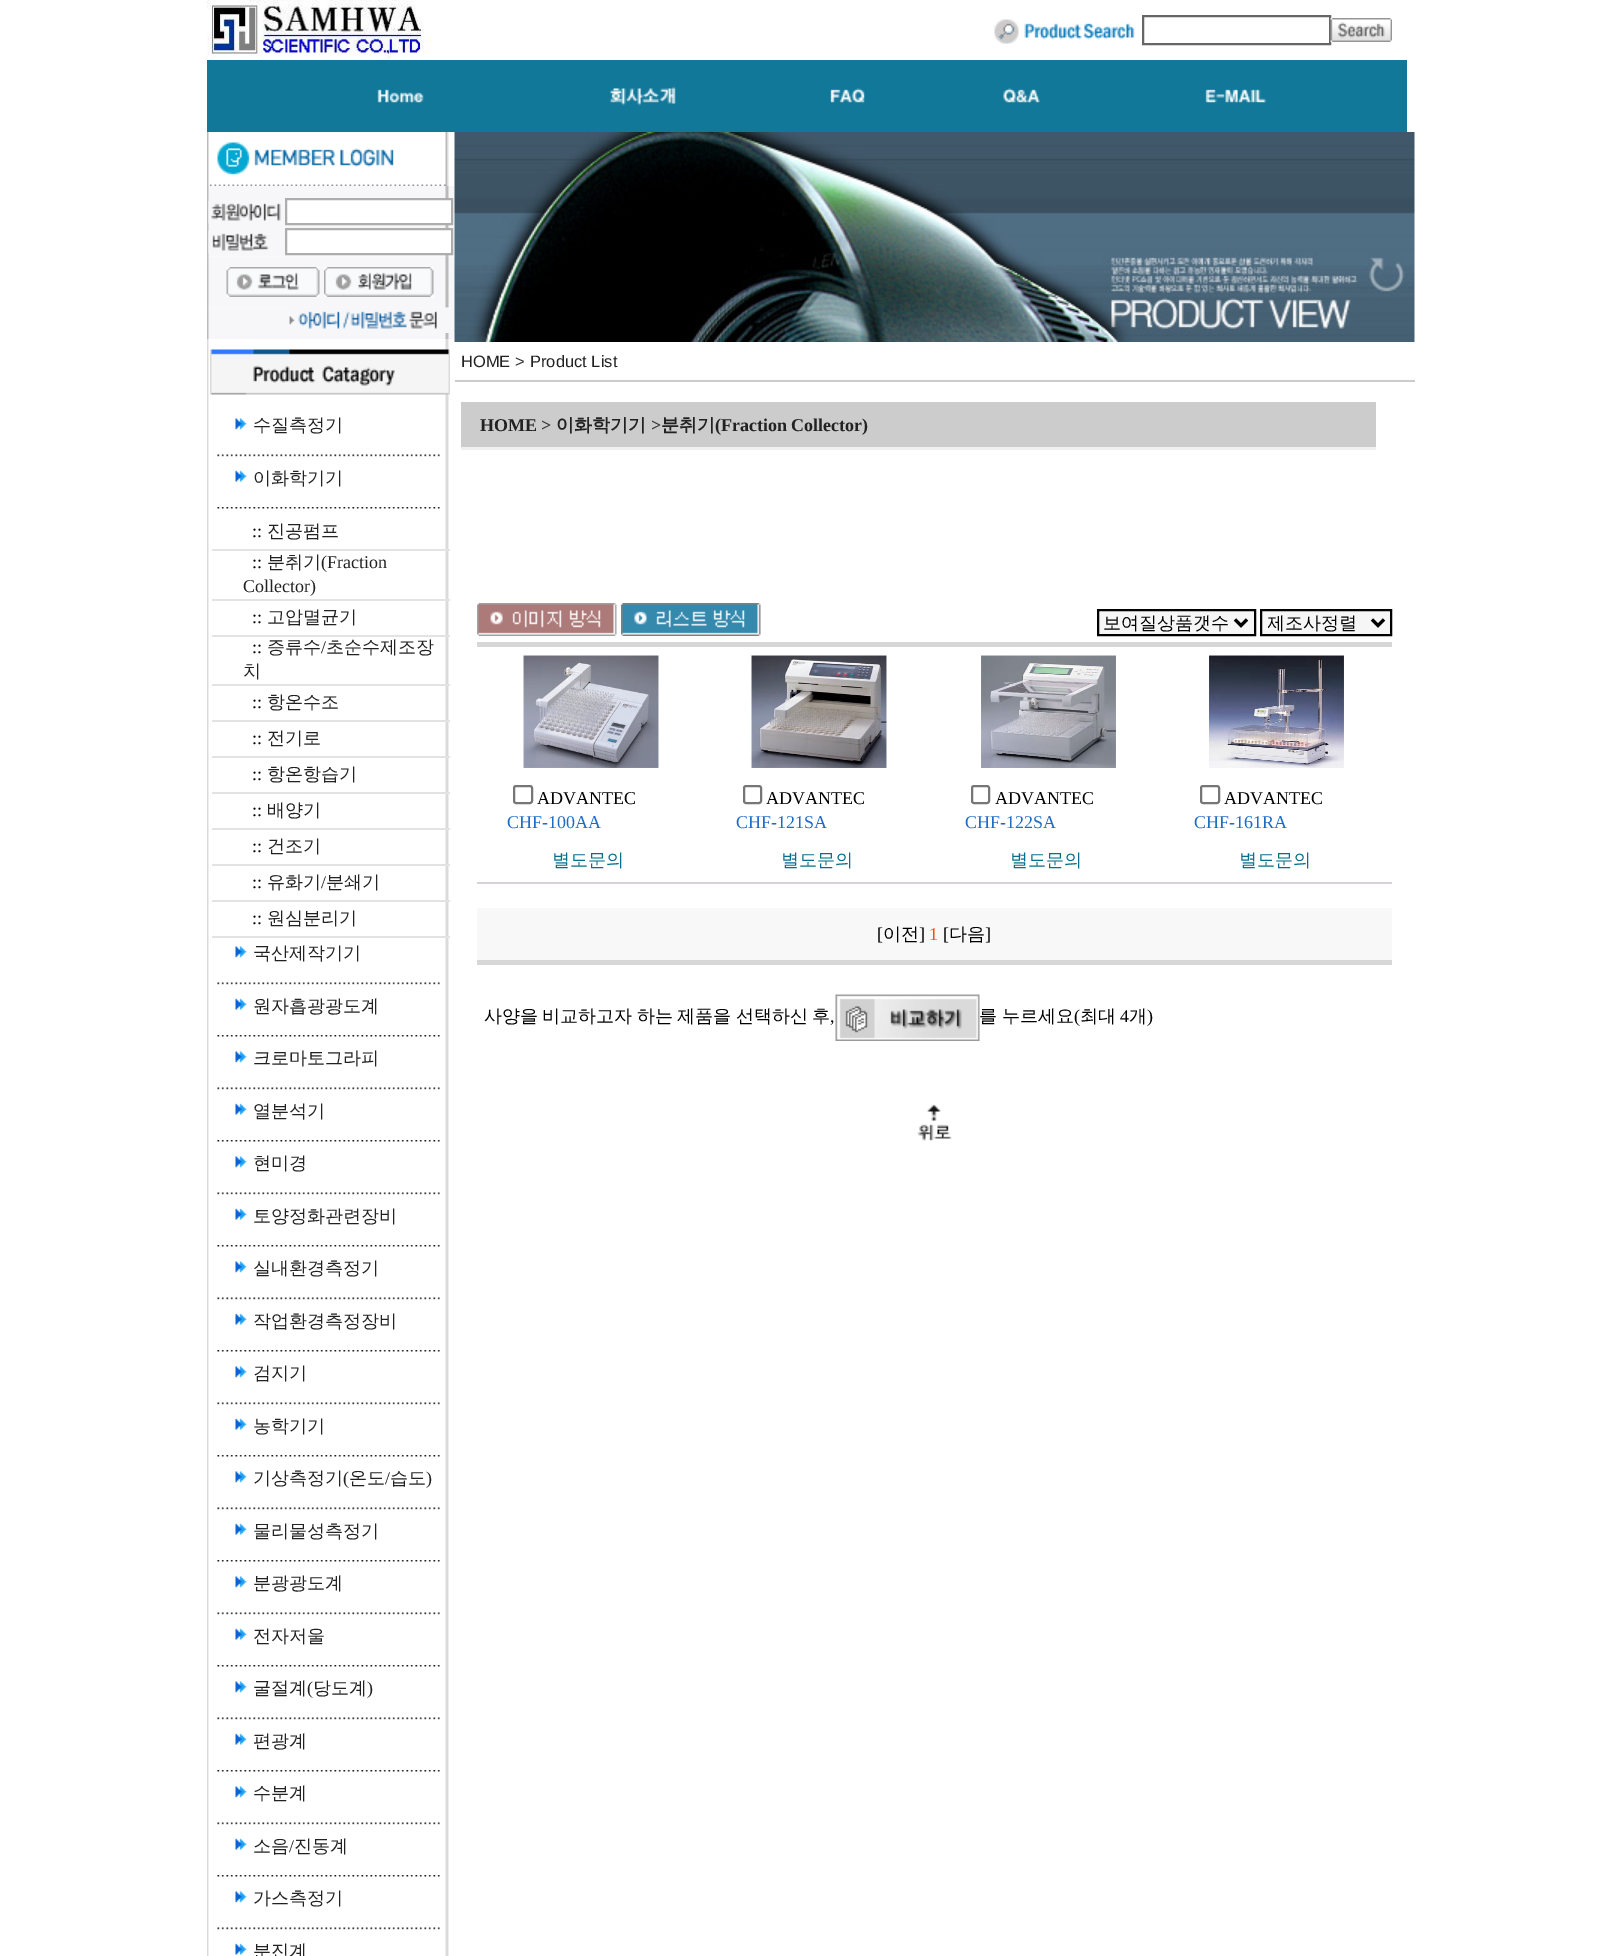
%!PS
<< /PageSize [1619 1956] >> setpagedevice
/rgb { 3 { 255 div 3 1 roll } repeat setrgbcolor } def
/font { [ exch dup neg 0 0 3 -1 roll 0 0 ] selectfont } def
/roundrect { 5 dict begin { /r /h /w /y /x } { exch def } forall
  x r add y moveto x w add y 2 copy h add r arct x w add y h add x 1 index r arct
  x y h add x y r arct x y 2 copy exch w add exch r arct closepath end } def
/picture { 5 dict begin { /h /w /y /x /name } { exch def } forall
  gsave x y translate w h scale
  w h 8 [w 0 0 h 0 0] name (r) file false 3 colorimage grestore end } def
0 1956 translate 1 -1 scale
4 setmiterlimit
255 255 255 rgb
0 0 1619 1956 rectfill
(img/1.rgb) 207 0 225 60 picture
(img/2.rgb) 994 19 141 25 picture
102 102 102 rgb
2 setlinewidth
1143 16 187 28 rectstroke
(img/3.rgb) 1330 18 62 24 picture
17 120 153 rgb
207 60 1200 72 rectfill
(img/4.rgb) 377 89 47 14 picture
(img/5.rgb) 610 86 66 20 picture
(img/6.rgb) 830 88 35 16 picture
(img/7.rgb) 1003 88 37 16 picture
(img/8.rgb) 1205 89 62 14 picture
(img/9.rgb) 207 132 242 1824 picture
(img/10.rgb) 207 132 240 54 picture
(img/11.rgb) 207 186 248 71 picture
(img/12.rgb) 208 201 73 23 picture
255 255 255 rgb
286 199 moveto 452 199 lineto 452 224 lineto 286 224 lineto closepath gsave fill grestore
173 173 173 rgb
stroke
(img/13.rgb) 208 231 61 23 picture
255 255 255 rgb
286 229 moveto 452 229 lineto 452 254 lineto 286 254 lineto closepath gsave fill grestore
173 173 173 rgb
stroke
(img/14.rgb) 207 256 248 11 picture
(img/15.rgb) 207 267 248 41 picture
(img/16.rgb) 226 267 94 30 picture
(img/17.rgb) 324 267 110 30 picture
(img/18.rgb) 207 307 248 32 picture
(img/19.rgb) 289 307 160 26 picture
(img/20.rgb) 210 349 240 46 picture
(img/21.rgb) 235 418 12 12 picture
(img/22.rgb) 217 454 223 3 picture
(img/23.rgb) 235 470 12 12 picture
(img/24.rgb) 217 507 223 2 picture
[
  [212 549 238 2 227 227 227]
  [212 599 238 2 227 227 227]
  [212 635 238 2 227 227 227]
  [212 684 238 2 227 227 227]
  [212 720 238 2 227 227 227]
  [212 756 238 2 227 227 227]
  [212 792 238 2 227 227 227]
  [212 828 238 2 227 227 227]
  [212 864 238 2 227 227 227]
  [212 900 238 2 227 227 227]
  [212 936 238 2 227 227 227]
] { aload pop rgb rectfill } forall
(img/21.rgb) 235 946 12 12 picture
(img/22.rgb) 217 982 223 3 picture
(img/23.rgb) 235 998 12 12 picture
(img/24.rgb) 217 1035 223 2 picture
(img/21.rgb) 235 1051 12 12 picture
(img/22.rgb) 217 1087 223 3 picture
(img/23.rgb) 235 1103 12 12 picture
(img/24.rgb) 217 1140 223 2 picture
(img/21.rgb) 235 1156 12 12 picture
(img/22.rgb) 217 1192 223 3 picture
(img/23.rgb) 235 1208 12 12 picture
(img/24.rgb) 217 1245 223 2 picture
(img/21.rgb) 235 1261 12 12 picture
(img/22.rgb) 217 1297 223 3 picture
(img/23.rgb) 235 1313 12 12 picture
(img/24.rgb) 217 1350 223 2 picture
(img/21.rgb) 235 1366 12 12 picture
(img/22.rgb) 217 1402 223 3 picture
(img/23.rgb) 235 1418 12 12 picture
(img/24.rgb) 217 1455 223 2 picture
(img/21.rgb) 235 1471 12 12 picture
(img/22.rgb) 217 1507 223 3 picture
(img/23.rgb) 235 1523 12 12 picture
(img/24.rgb) 217 1560 223 2 picture
(img/21.rgb) 235 1576 12 12 picture
(img/22.rgb) 217 1612 223 3 picture
(img/23.rgb) 235 1628 12 12 picture
(img/24.rgb) 217 1665 223 2 picture
(img/21.rgb) 235 1681 12 12 picture
(img/22.rgb) 217 1717 223 3 picture
(img/23.rgb) 235 1733 12 12 picture
(img/24.rgb) 217 1770 223 2 picture
(img/21.rgb) 235 1786 12 12 picture
(img/22.rgb) 217 1822 223 3 picture
(img/23.rgb) 235 1838 12 12 picture
(img/24.rgb) 217 1875 223 2 picture
(img/21.rgb) 235 1891 12 12 picture
(img/22.rgb) 217 1927 223 3 picture
(img/23.rgb) 235 1943 12 12 picture
(img/25.rgb) 454 132 961 210 picture
[
  [455 380 960 2 204 204 204]
  [461 402 915 45 204 204 204]
  [461 447 915 3 240 240 240]
] { aload pop rgb rectfill } forall
(img/26.rgb) 477 603 140 33 picture
(img/27.rgb) 621 603 140 33 picture
246 246 246 rgb
1098 610 moveto 1255 610 lineto 1255 635 lineto 1098 635 lineto closepath gsave fill grestore
0 0 0 rgb
stroke
3 setlinewidth
1235 619.5 moveto 1241 625.5 lineto 1247 619.5 lineto stroke
246 246 246 rgb
1261 610 moveto 1391 610 lineto 1391 635 lineto 1261 635 lineto closepath gsave fill grestore
0 0 0 rgb
2 setlinewidth
stroke
3 setlinewidth
1372 619.5 moveto 1378 625.5 lineto 1384 619.5 lineto stroke
215 215 215 rgb
477 642 915 5 rectfill
(img/28.rgb) 523 655 136 113 picture
118 118 118 rgb
2 setlinewidth
514 786 18 17 2 roundrect stroke
(img/29.rgb) 751 655 136 113 picture
744 786 17 17 2 roundrect stroke
(img/30.rgb) 981 655 135 113 picture
972 786 17 17 2 roundrect stroke
(img/31.rgb) 1209 655 135 113 picture
1201 786 18 17 2 roundrect stroke
[
  [477 882 915 2 216 209 216]
  [477 908 915 52 248 248 248]
  [477 960 915 5 215 215 215]
] { aload pop rgb rectfill } forall
(img/32.rgb) 835 994 145 47 picture
(img/33.rgb) 917 1104 35 37 picture
/WenQuanYiZenHei-Medium 18 font
34 34 34 rgb
253 431 moveto (수질측정기) show
253 484 moveto (이화학기기) show
/LiberationSerif-Regular 18 font
0 0 0 rgb
252 537 moveto (::) show
/WenQuanYiZenHei-Medium 18 font
34 34 34 rgb
267 537 moveto (진공펌프) show
/LiberationSerif-Regular 18 font
0 0 0 rgb
252 568 moveto (::) show
/WenQuanYiZenHei-Medium 18 font
34 34 34 rgb
267 568 moveto (분취기) show
/LiberationSerif-Regular 18 font
321 568 moveto (\(Fraction) show
243 592 moveto (Collector\)) show
0 0 0 rgb
252 623 moveto (::) show
/WenQuanYiZenHei-Medium 18 font
34 34 34 rgb
267 623 moveto (고압멸균기) show
/LiberationSerif-Regular 18 font
0 0 0 rgb
252 653 moveto (::) show
/WenQuanYiZenHei-Medium 18 font
34 34 34 rgb
267 653 moveto (증류수) show
/LiberationSerif-Regular 18 font
321 653 moveto (/) show
/WenQuanYiZenHei-Medium 18 font
326 653 moveto (초순수제조장) show
243 677 moveto (치) show
/LiberationSerif-Regular 18 font
0 0 0 rgb
252 708 moveto (::) show
/WenQuanYiZenHei-Medium 18 font
34 34 34 rgb
267 708 moveto (항온수조) show
/LiberationSerif-Regular 18 font
0 0 0 rgb
252 744 moveto (::) show
/WenQuanYiZenHei-Medium 18 font
34 34 34 rgb
267 744 moveto (전기로) show
/LiberationSerif-Regular 18 font
0 0 0 rgb
252 780 moveto (::) show
/WenQuanYiZenHei-Medium 18 font
34 34 34 rgb
267 780 moveto (항온항습기) show
/LiberationSerif-Regular 18 font
0 0 0 rgb
252 816 moveto (::) show
/WenQuanYiZenHei-Medium 18 font
34 34 34 rgb
267 816 moveto (배양기) show
/LiberationSerif-Regular 18 font
0 0 0 rgb
252 852 moveto (::) show
/WenQuanYiZenHei-Medium 18 font
34 34 34 rgb
267 852 moveto (건조기) show
/LiberationSerif-Regular 18 font
0 0 0 rgb
252 888 moveto (::) show
/WenQuanYiZenHei-Medium 18 font
34 34 34 rgb
267 888 moveto (유화기) show
/LiberationSerif-Regular 18 font
321 888 moveto (/) show
/WenQuanYiZenHei-Medium 18 font
326 888 moveto (분쇄기) show
/LiberationSerif-Regular 18 font
0 0 0 rgb
252 924 moveto (::) show
/WenQuanYiZenHei-Medium 18 font
34 34 34 rgb
[
  [(원심분리기) 267 924]
  [(국산제작기기) 253 959]
  [(원자흡광광도계) 253 1012]
  [(크로마토그라피) 253 1064]
  [(열분석기) 253 1117]
  [(현미경) 253 1169]
  [(토양정화관련장비) 253 1222]
  [(실내환경측정기) 253 1274]
  [(작업환경측정장비) 253 1327]
  [(검지기) 253 1379]
  [(농학기기) 253 1432]
  [(기상측정기) 253 1484]
] { aload pop moveto show } forall
/LiberationSerif-Regular 18 font
343 1484 moveto (\() show
/WenQuanYiZenHei-Medium 18 font
349 1484 moveto (온도) show
/LiberationSerif-Regular 18 font
385 1484 moveto (/) show
/WenQuanYiZenHei-Medium 18 font
390 1484 moveto (습도) show
/LiberationSerif-Regular 18 font
426 1484 moveto (\)) show
/WenQuanYiZenHei-Medium 18 font
[
  [(물리물성측정기) 253 1537]
  [(분광광도계) 253 1589]
  [(전자저울) 253 1642]
  [(굴절계) 253 1694]
] { aload pop moveto show } forall
/LiberationSerif-Regular 18 font
307 1694 moveto (\() show
/WenQuanYiZenHei-Medium 18 font
313 1694 moveto (당도계) show
/LiberationSerif-Regular 18 font
367 1694 moveto (\)) show
/WenQuanYiZenHei-Medium 18 font
[
  [(편광계) 253 1747]
  [(수분계) 253 1799]
  [(소음) 253 1852]
] { aload pop moveto show } forall
/LiberationSerif-Regular 18 font
289 1852 moveto (/) show
/WenQuanYiZenHei-Medium 18 font
[
  [(진동계) 294 1852]
  [(가스측정기) 253 1904]
  [(분진계) 253 1957]
] { aload pop moveto show } forall
/LiberationSans-Regular 16.5 font
461 367 moveto (HOME) show
51 51 51 rgb
515 367 moveto (>) show
34 34 34 rgb
530 367 moveto (Product List) show
/LiberationSerif-Bold 18 font
480 431 moveto (HOME) show
51 51 51 rgb
541 431 moveto (>) show
/WenQuanYiZenHei-Bold 18 font
34 34 34 rgb
556 431 moveto (이화학기기) show
/LiberationSerif-Bold 18 font
51 51 51 rgb
651 431 moveto (>) show
/WenQuanYiZenHei-Bold 18 font
34 34 34 rgb
661 431 moveto (분취기) show
/LiberationSerif-Bold 18 font
715 431 moveto (\(Fraction Collector\)) show
/WenQuanYiZenHei-Medium 18 font
0 0 0 rgb
1103 629 moveto (보여질상품갯수) show
gsave
1268 611 99 24 rectclip
1267 629 moveto (제조사정렬) show
grestore
/LiberationSerif-Regular 18 font
537 804 moveto (ADVANTEC) show
29 108 198 rgb
507 828 moveto (CHF-100AA) show
/WenQuanYiZenHei-Medium 18 font
5 110 140 rgb
552 866 moveto (별도문의) show
/LiberationSerif-Regular 18 font
0 0 0 rgb
766 804 moveto (ADVANTEC) show
29 108 198 rgb
736 828 moveto (CHF-121SA) show
/WenQuanYiZenHei-Medium 18 font
5 110 140 rgb
781 866 moveto (별도문의) show
/LiberationSerif-Regular 18 font
0 0 0 rgb
995 804 moveto (ADVANTEC) show
29 108 198 rgb
965 828 moveto (CHF-122SA) show
/WenQuanYiZenHei-Medium 18 font
5 110 140 rgb
1010 866 moveto (별도문의) show
/LiberationSerif-Regular 18 font
0 0 0 rgb
1224 804 moveto (ADVANTEC) show
29 108 198 rgb
1194 828 moveto (CHF-161RA) show
/WenQuanYiZenHei-Medium 18 font
5 110 140 rgb
1239 866 moveto (별도문의) show
/LiberationSerif-Regular 18 font
0 0 0 rgb
877 940 moveto ([) show
/WenQuanYiZenHei-Medium 18 font
883 940 moveto (이전) show
/LiberationSerif-Regular 18 font
919 940 moveto (]) show
255 78 0 rgb
929 940 moveto (1) show
0 0 0 rgb
943 940 moveto ([) show
/WenQuanYiZenHei-Medium 18 font
949 940 moveto (다음) show
/LiberationSerif-Regular 18 font
985 940 moveto (]) show
/WenQuanYiZenHei-Medium 18 font
484 1022 moveto -1 0 32 (사양을 비교하고자 하는 제품을 선택하신 후) widthshow
979 1022 moveto (를 누르세요) show
/LiberationSerif-Regular 18 font
1074 1022 moveto (\() show
/WenQuanYiZenHei-Medium 18 font
1080 1022 moveto (최대) show
/LiberationSerif-Regular 18 font
1120 1022 moveto (4) show
/WenQuanYiZenHei-Medium 18 font
1129 1022 moveto (개) show
/LiberationSerif-Regular 18 font
1147 1022 moveto (\)) show
830 1022 moveto (,) show
showpage
